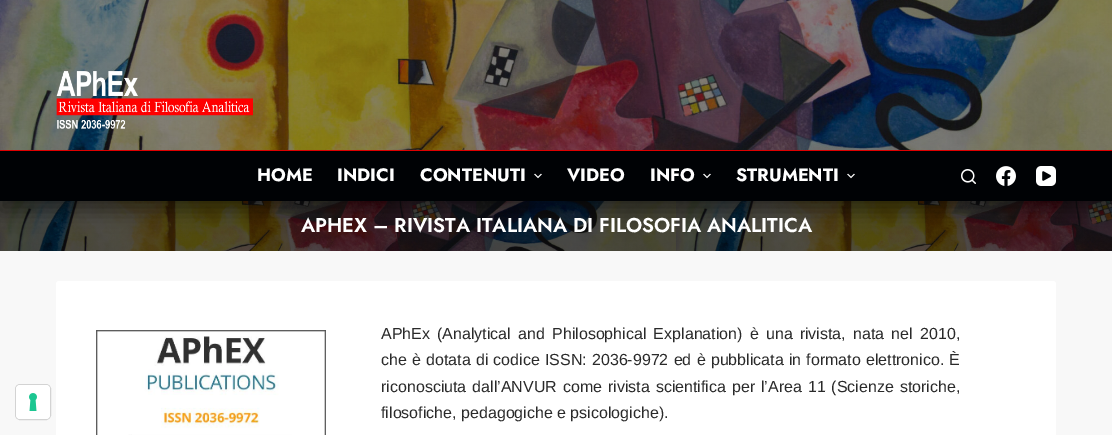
%!PS
<< /PageSize [1112 435] /PageUsesTransparency true >> setpagedevice
/rgb { 3 { 255 div 3 1 roll } repeat setrgbcolor } def
/font { [ exch dup neg 0 0 3 -1 roll 0 0 ] selectfont } def
/alpha { dup .setfillconstantalpha .setstrokeconstantalpha } def
/roundrect { 5 dict begin { /r /h /w /y /x } { exch def } forall
  x r add y moveto x w add y 2 copy h add r arct x w add y h add x 1 index r arct
  x y h add x y r arct x y 2 copy exch w add exch r arct closepath end } def
/shadow { 12 dict begin { /a /b /q /h /w /y /x } { exch def } forall gsave /was 0 def
  9 -2 -9 { dup b mul 4 div /e exch def 1 sub .425 mul 2.718 exch exp 1 add a .99 .min exch div /now exch def
    1 1 now sub 1 was sub div sub alpha /was now def
    w h .min e 2 mul add 0 gt { x e sub y e sub w e 2 mul add h e 2 mul add
      q e add b .6 mul add w h .min 2 div e add .min 0 .max roundrect fill } if } for grestore end } def
/picture { 5 dict begin { /h /w /y /x /name } { exch def } forall
  gsave x y translate w h scale
  w h 8 [w 0 0 h 0 0] name (r) file false 3 colorimage grestore end } def
0 .pushpdf14devicefilter
0 435 translate 1 -1 scale
4 setmiterlimit
248 248 248 rgb
0 0 1112 435 rectfill
211 211 211 rgb
15.5 384.5 35 35 4.5 roundrect stroke
255 255 255 rgb
16 385 34 34 4 roundrect fill
(img/1.rgb) 29 393 8 18 picture
(img/8.rgb) 0 201 1112 50 picture
0 0 0 rgb
0 160 1112 51 0 10 0.47 shadow
(img/2.rgb) 0 0 1112 150 picture
(img/3.rgb) 56 71 197 58 picture
0 2 5 rgb
0 151 1112 50 rectfill
222 0 0 rgb
0 150 1112 1 rectfill
(img/4.rgb) 534 173 8 6 picture
(img/4.rgb) 703 173 8 6 picture
(img/4.rgb) 847 173 8 6 picture
(img/5.rgb) 961 169 15 15 picture
(img/6.rgb) 996 166 20 20 picture
(img/7.rgb) 1036 166 20 20 picture
255 255 255 rgb
56 281 1000 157 3 roundrect fill
(img/9.rgb) 96 330 230 105 picture
/Jost-Bold 18 font
[
  [(HOME) 257 181]
  [(INDICI) 337 181]
  [(CONTENUTI) 420 181]
  [(VIDEO) 567 181]
  [(INFO) 650 181]
  [(STRUMENTI) 736 181]
] { aload pop moveto show } forall
/Jost-SemiBold 20 font
301 232 moveto (APHEX – RIVISTA ITALIANA DI FILOSOFIA ANALITICA) show
/LiberationSans-Regular 16 font
42 42 42 rgb
381 339 moveto 2.75 0 32 (APhEx \(Analytical and Philosophical Explanation\) è una rivista, nata nel 2010,) widthshow
381 365 moveto 0.75 0 32 (che è dotata di codice ISSN: 2036-9972 ed è pubblicata in formato elettronico. È) widthshow
381 392 moveto 1.5 0 32 (riconosciuta dall’ANVUR come rivista scientifica per l’Area 11 \(Scienze storiche,) widthshow
381 418 moveto (filosofiche, pedagogiche e psicologiche\).) show
.poppdf14devicefilter showpage
